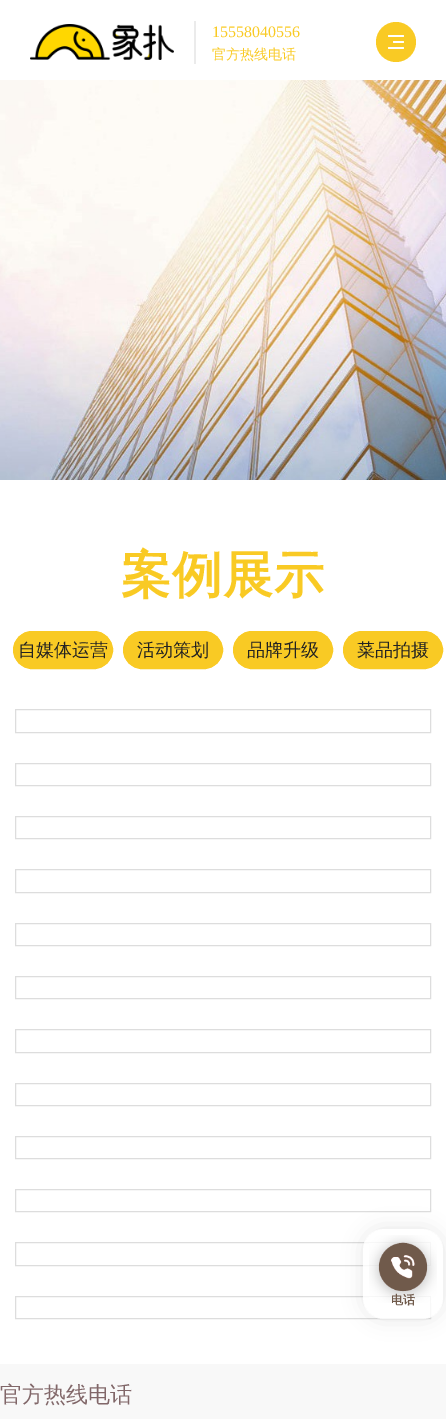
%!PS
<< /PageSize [446 1419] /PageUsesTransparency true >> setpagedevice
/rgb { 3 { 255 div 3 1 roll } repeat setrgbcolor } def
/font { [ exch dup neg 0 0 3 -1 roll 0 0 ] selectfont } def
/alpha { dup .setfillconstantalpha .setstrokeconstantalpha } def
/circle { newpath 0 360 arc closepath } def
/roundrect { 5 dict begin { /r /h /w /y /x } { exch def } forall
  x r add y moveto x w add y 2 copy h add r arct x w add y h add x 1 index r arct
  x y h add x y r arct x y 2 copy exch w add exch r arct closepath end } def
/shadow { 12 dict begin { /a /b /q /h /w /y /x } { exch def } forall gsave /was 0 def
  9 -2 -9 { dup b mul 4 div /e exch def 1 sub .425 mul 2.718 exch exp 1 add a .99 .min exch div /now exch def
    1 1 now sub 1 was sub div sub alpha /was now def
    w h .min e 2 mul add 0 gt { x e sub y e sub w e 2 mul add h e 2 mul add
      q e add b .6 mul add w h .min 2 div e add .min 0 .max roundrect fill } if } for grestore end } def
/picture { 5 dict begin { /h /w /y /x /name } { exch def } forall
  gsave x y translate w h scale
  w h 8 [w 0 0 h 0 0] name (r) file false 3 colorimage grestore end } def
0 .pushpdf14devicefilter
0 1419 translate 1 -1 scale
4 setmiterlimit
255 255 255 rgb
0 0 446 1419 rectfill
(img/1.rgb) 30 24 144 36 picture
235 235 235 rgb
194 21 2 43 rectfill
249 202 36 rgb
396 42 20 circle fill
255 255 255 rgb
388 35 16 2 1 roundrect fill
393 41 11 2 1 roundrect fill
388 47 16 2 1 roundrect fill
221 221 221 rgb
15.5 1189.5 415 22 rectstroke
15.5 1242.5 415 23 rectstroke
15.5 1296.5 415 22 rectstroke
gsave
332 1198 moveto 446 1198 lineto 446 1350 lineto 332 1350 lineto closepath 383 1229 moveto 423 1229 lineto 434 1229 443 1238 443 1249 curveto 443 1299 lineto 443 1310 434 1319 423 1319 curveto 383 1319 lineto 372 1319 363 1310 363 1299 curveto 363 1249 lineto 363 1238 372 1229 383 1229 curveto closepath eoclip newpath
0 0 0 rgb
363 1229 80 90 20 10 0.1 shadow
grestore
0.8 alpha
255 255 255 rgb
363 1229 80 90 20 roundrect fill
1 alpha
(img/2.rgb) 369 1235 68 68 picture
(img/3.rgb) 0 80 446 400 picture
249 202 36 rgb
13.5 631.5 99 37 18.5 roundrect gsave fill grestore
stroke
123.5 631.5 99 37 18.5 roundrect gsave fill grestore
stroke
233.5 631.5 99 37 18.5 roundrect gsave fill grestore
stroke
343.5 631.5 99 37 18.5 roundrect gsave fill grestore
stroke
221 221 221 rgb
15.5 709.5 415 23 rectstroke
15.5 763.5 415 22 rectstroke
15.5 816.5 415 22 rectstroke
15.5 869.5 415 23 rectstroke
15.5 923.5 415 22 rectstroke
15.5 976.5 415 22 rectstroke
15.5 1029.5 415 23 rectstroke
15.5 1083.5 415 22 rectstroke
15.5 1136.5 415 22 rectstroke
248 248 248 rgb
0 1364 446 55 rectfill
/LiberationSerif-Regular 16 font
249 202 36 rgb
212 37 moveto (15558040556) show
/WenQuanYiZenHei-Medium 14 font
212 59 moveto (官方热线电话) show
/WenQuanYiZenHei-Bold 12 font
112 90 75 rgb
391 1304 moveto (电话) show
/WenQuanYiZenHei-Bold 50 font
249 202 36 rgb
121 592 moveto 1 0 (案例展示) ashow
/WenQuanYiZenHei-Medium 18 font
34 34 34 rgb
[
  [(自媒体运营) 18 656]
  [(活动策划) 137 656]
  [(品牌升级) 247 656]
  [(菜品拍摄) 357 656]
] { aload pop moveto show } forall
/WenQuanYiZenHei-Medium 22 font
129 103 105 rgb
0 1402 moveto (官方热线电话) show
.poppdf14devicefilter showpage
